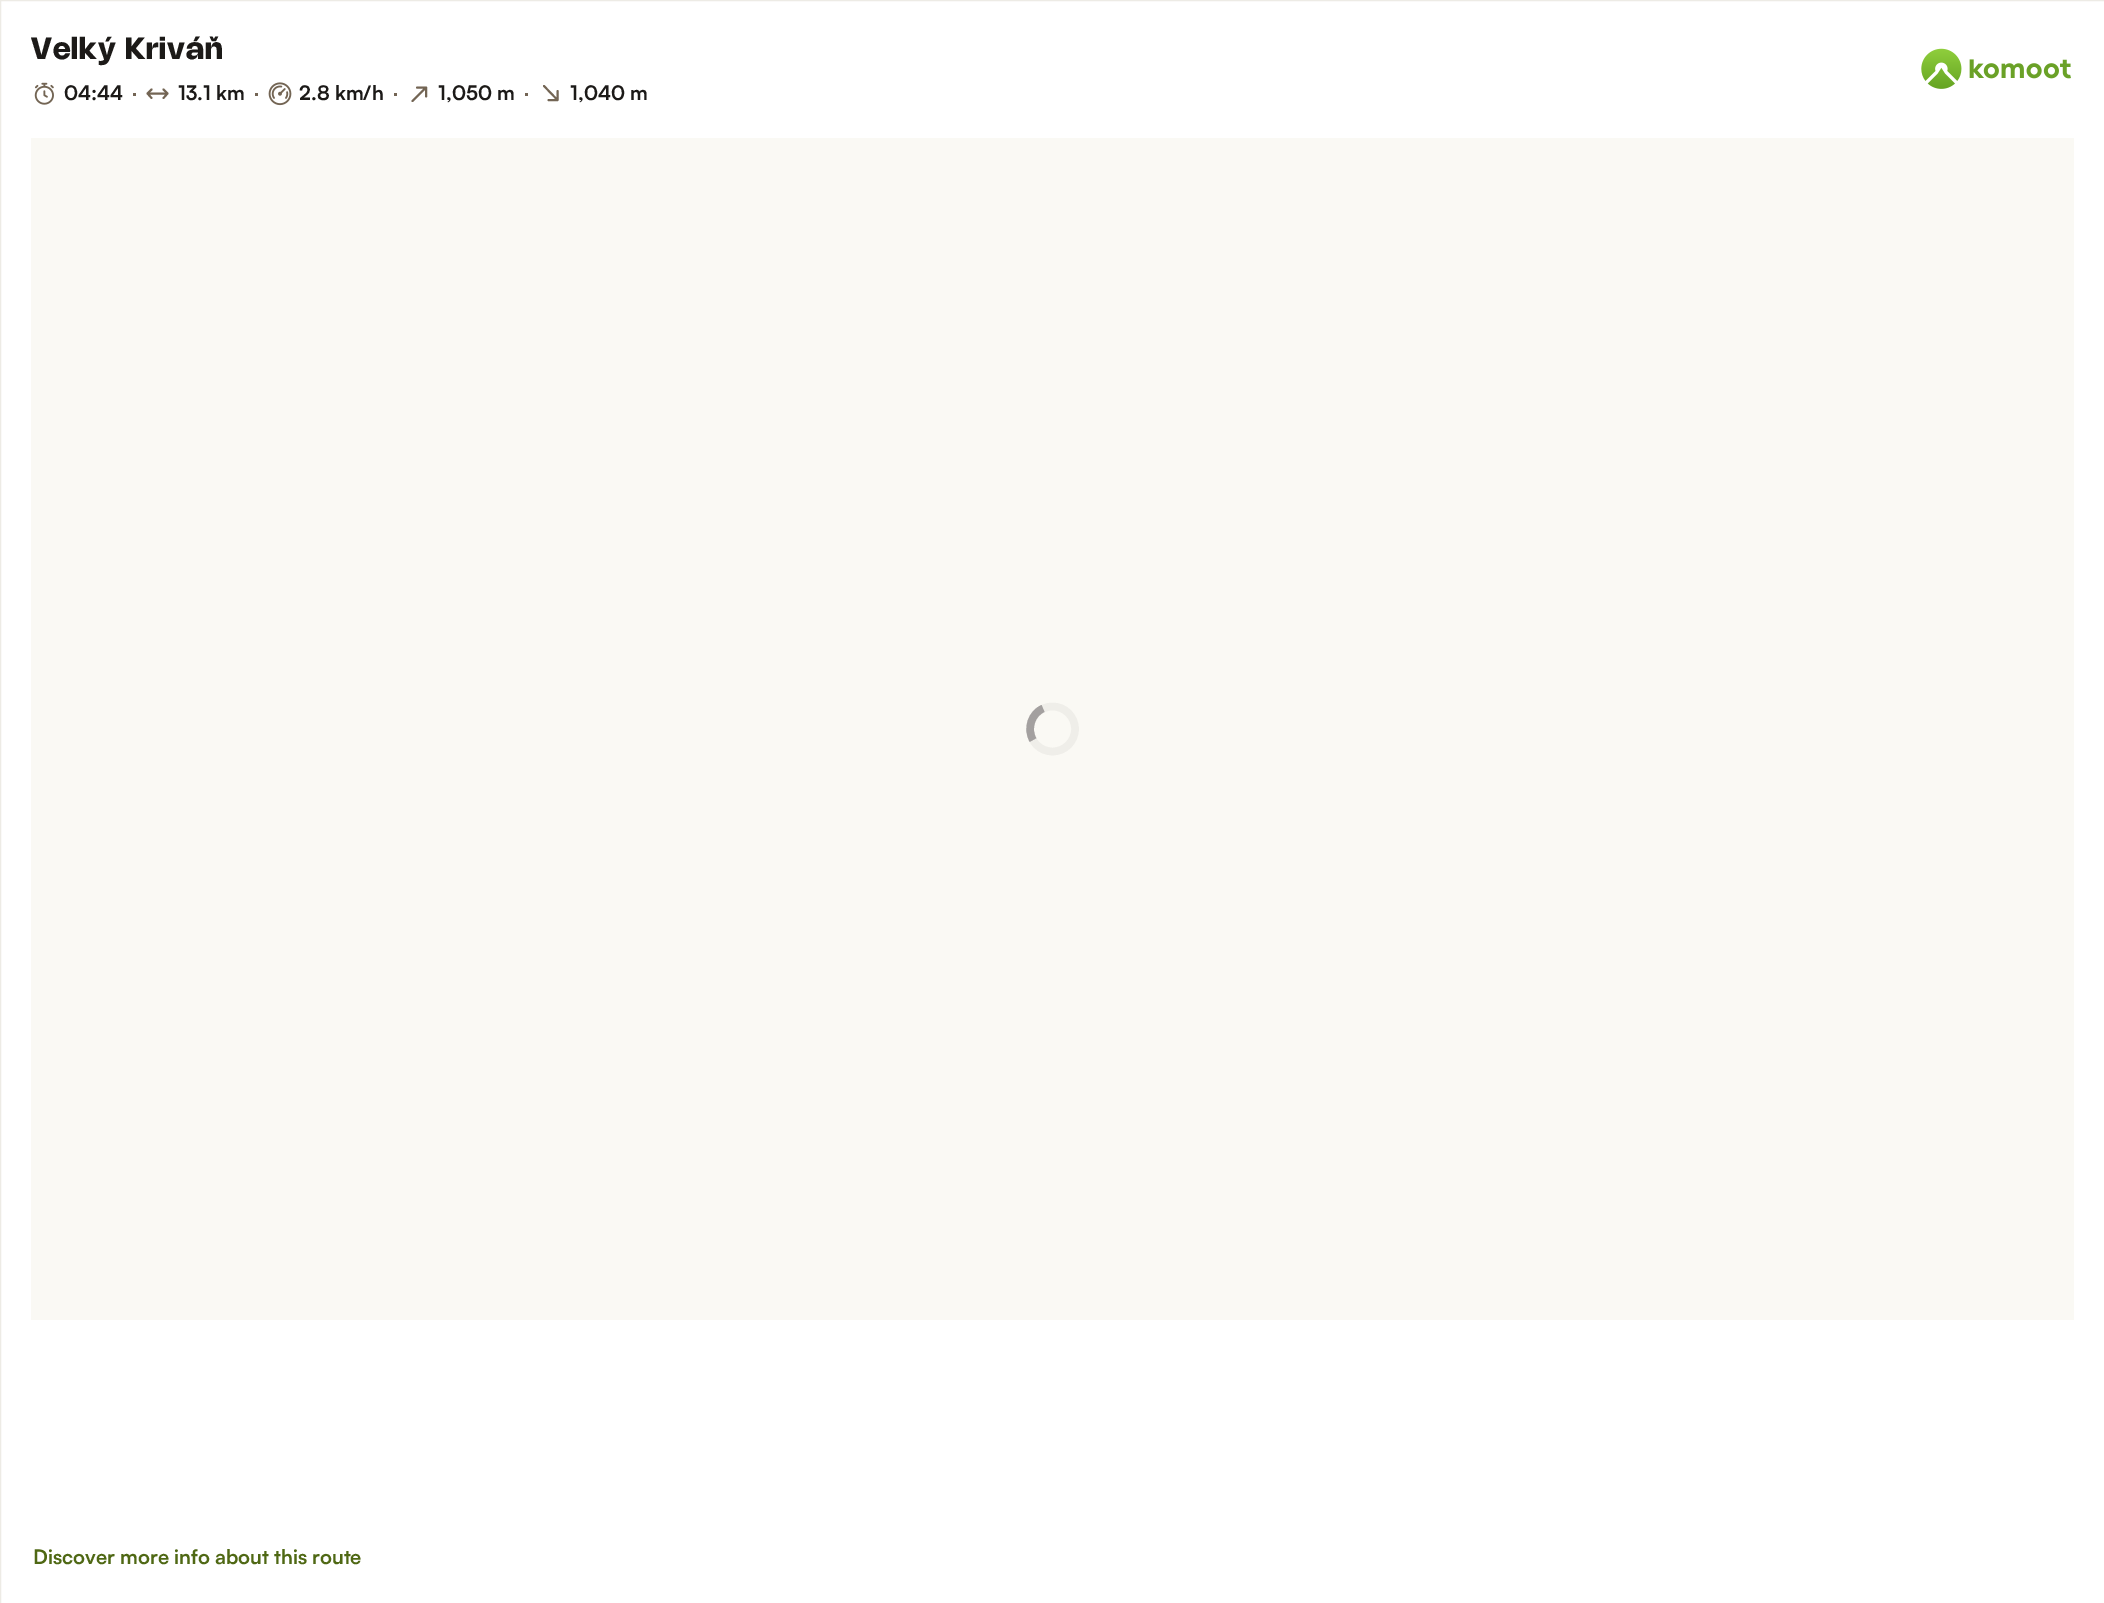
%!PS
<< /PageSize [2104 1603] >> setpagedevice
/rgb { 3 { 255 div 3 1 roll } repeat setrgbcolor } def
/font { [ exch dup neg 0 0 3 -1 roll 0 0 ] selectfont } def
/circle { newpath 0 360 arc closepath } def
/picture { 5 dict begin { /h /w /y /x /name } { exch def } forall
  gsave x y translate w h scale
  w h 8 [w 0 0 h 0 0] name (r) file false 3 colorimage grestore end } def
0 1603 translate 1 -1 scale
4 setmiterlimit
255 255 255 rgb
0 0 2104 1603 rectfill
237 235 229 rgb
0.5 0.5 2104 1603 rectstroke
(img/1.rgb) 34 82 20 23 picture
115 101 84 rgb
133 93 3 3 rectfill
1.9 setlinewidth
1 setlinecap
1 setlinejoin
147.5 93.5 moveto 167.5 93.5 lineto 147.5 93.5 moveto 151.5 98 lineto 147.5 93.5 moveto 151.5 89.5 lineto 167.5 93.5 moveto 163.5 89.5 lineto 167.5 93.5 moveto 163.5 98 lineto stroke
255 93 3 3 rectfill
(img/2.rgb) 268 82 24 24 picture
394 93 3 3 rectfill
426 87.5 moveto 412.5 101 lineto 426 87.5 moveto 417 87.5 lineto 426 87.5 moveto 426 96.5 lineto stroke
525 93 3 3 rectfill
557.5 100 moveto 544 86 lineto 557.5 100 moveto 557.5 91 lineto 557.5 100 moveto 548.5 100 lineto stroke
(img/3.rgb) 1921 48 150 41 picture
250 249 244 rgb
31 138 2043 1182 rectfill
239 238 233 rgb
7.5 setlinewidth
0 setlinecap
0 setlinejoin
1052.5 729 22.5 circle stroke
163 160 159 rgb
1033 740 moveto 1026.5 728.5 1031.5 713.5 1043 708.5 curveto stroke
/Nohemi-Bold 30 font
28 26 24 rgb
31 59 moveto 0.9 0 (Velký Kriváň) ashow
/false-Bold 20 font
[
  [(04:44) 64 100]
  [(13.1) 178 100]
  [(km) 216 100]
  [(2.8) 299 100]
  [(km/h) 335 100]
  [(1,050) 438 100]
  [(m) 497 100]
  [(1,040) 570 100]
  [(m) 630 100]
] { aload pop moveto show } forall
79 104 20 rgb
33 1564 moveto (Discover more info about this route) show
showpage
